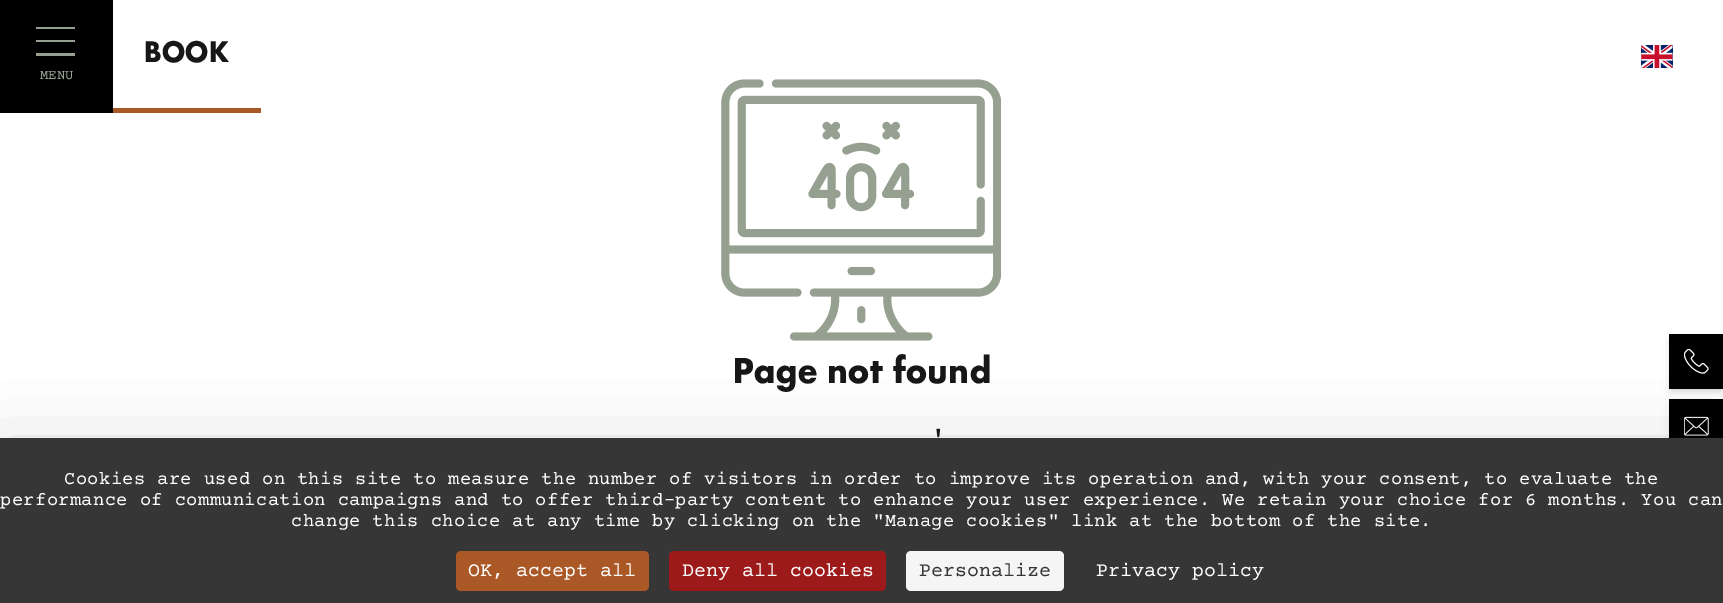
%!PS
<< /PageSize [1723 603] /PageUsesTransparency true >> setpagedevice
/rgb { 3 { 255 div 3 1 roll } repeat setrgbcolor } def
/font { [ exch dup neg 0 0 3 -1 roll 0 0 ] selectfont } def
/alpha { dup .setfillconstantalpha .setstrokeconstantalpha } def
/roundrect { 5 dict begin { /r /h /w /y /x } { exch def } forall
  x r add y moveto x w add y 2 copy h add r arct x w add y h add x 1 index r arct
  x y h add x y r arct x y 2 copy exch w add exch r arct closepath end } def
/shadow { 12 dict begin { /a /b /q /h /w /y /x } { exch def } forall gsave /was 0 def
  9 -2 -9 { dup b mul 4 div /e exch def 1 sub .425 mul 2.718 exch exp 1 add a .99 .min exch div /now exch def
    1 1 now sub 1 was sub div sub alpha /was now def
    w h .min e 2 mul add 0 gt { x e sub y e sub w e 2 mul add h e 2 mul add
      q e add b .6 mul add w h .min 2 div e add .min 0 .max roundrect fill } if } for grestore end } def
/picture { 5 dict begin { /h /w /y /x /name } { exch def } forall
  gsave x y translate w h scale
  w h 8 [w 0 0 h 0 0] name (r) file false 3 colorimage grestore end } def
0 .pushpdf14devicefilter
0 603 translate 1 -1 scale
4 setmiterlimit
255 255 255 rgb
0 0 1723 603 rectfill
[
  [113 108 148 5 169 89 38]
  [0 0 113 113 0 0 0]
  [36 27 39 2 150 160 144]
  [36 40 39 2 150 160 144]
  [36 53 39 3 150 160 144]
] { aload pop rgb rectfill } forall
(img/1.rgb) 1641 45 32 23 picture
(img/2.rgb) 721 79 280 262 picture
0 0 0 rgb
1671 339 50 50 0 2.5 0.1 shadow
1670 340 53 53 0 4 0.1 shadow
1669 334 54 55 rectfill
(img/3.rgb) 1684 349 25 25 picture
1670 405 53 53 0 4 0.1 shadow
1669 399 54 39 rectfill
(img/4.rgb) 1684 416 25 20 picture
0 463 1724 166 0 37.5 0.25 shadow
54 54 54 rgb
0 438 1723 165 rectfill
169 88 38 rgb
456 551 193 40 5 roundrect fill
156 26 26 rgb
669 551 217 40 5 roundrect fill
245 245 245 rgb
906 551 158 40 5 roundrect fill
/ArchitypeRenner-Bold 31 font
23 23 23 rgb
144 62 moveto 0.4 0 (BOOK) ashow
/CourierPrime-Regular 14 font
150 160 144 rgb
40 79 moveto (MENU) show
/ArchitypeRenner-Bold 37.5 font
23 23 23 rgb
733 383 moveto 0.4 0 (Page not found) ashow
/CourierPrime-Regular 31 font
929 448 moveto 0.4 0 (') ashow
/CourierPrime-Regular 18.75 font
255 255 255 rgb
64 484 moveto 0.4 0 (Cookies are used on this site to measure the number of visitors in order to improve its operation and, with your consent, to evaluate the) ashow
0 505 moveto 0.4 0 (performance of communication campaigns and to offer third-party content to enhance your user experience. We retain your choice for 6 months. You can) ashow
291 526 moveto 0.4 0 (change this choice at any time by clicking on the "Manage cookies" link at the bottom of the site.) ashow
/CourierPrime-Regular 20 font
468 576 moveto (OK, accept all) show
682 576 moveto (Deny all cookies) show
54 54 54 rgb
919 576 moveto (Personalize) show
255 255 255 rgb
1096 576 moveto (Privacy policy) show
.poppdf14devicefilter showpage
